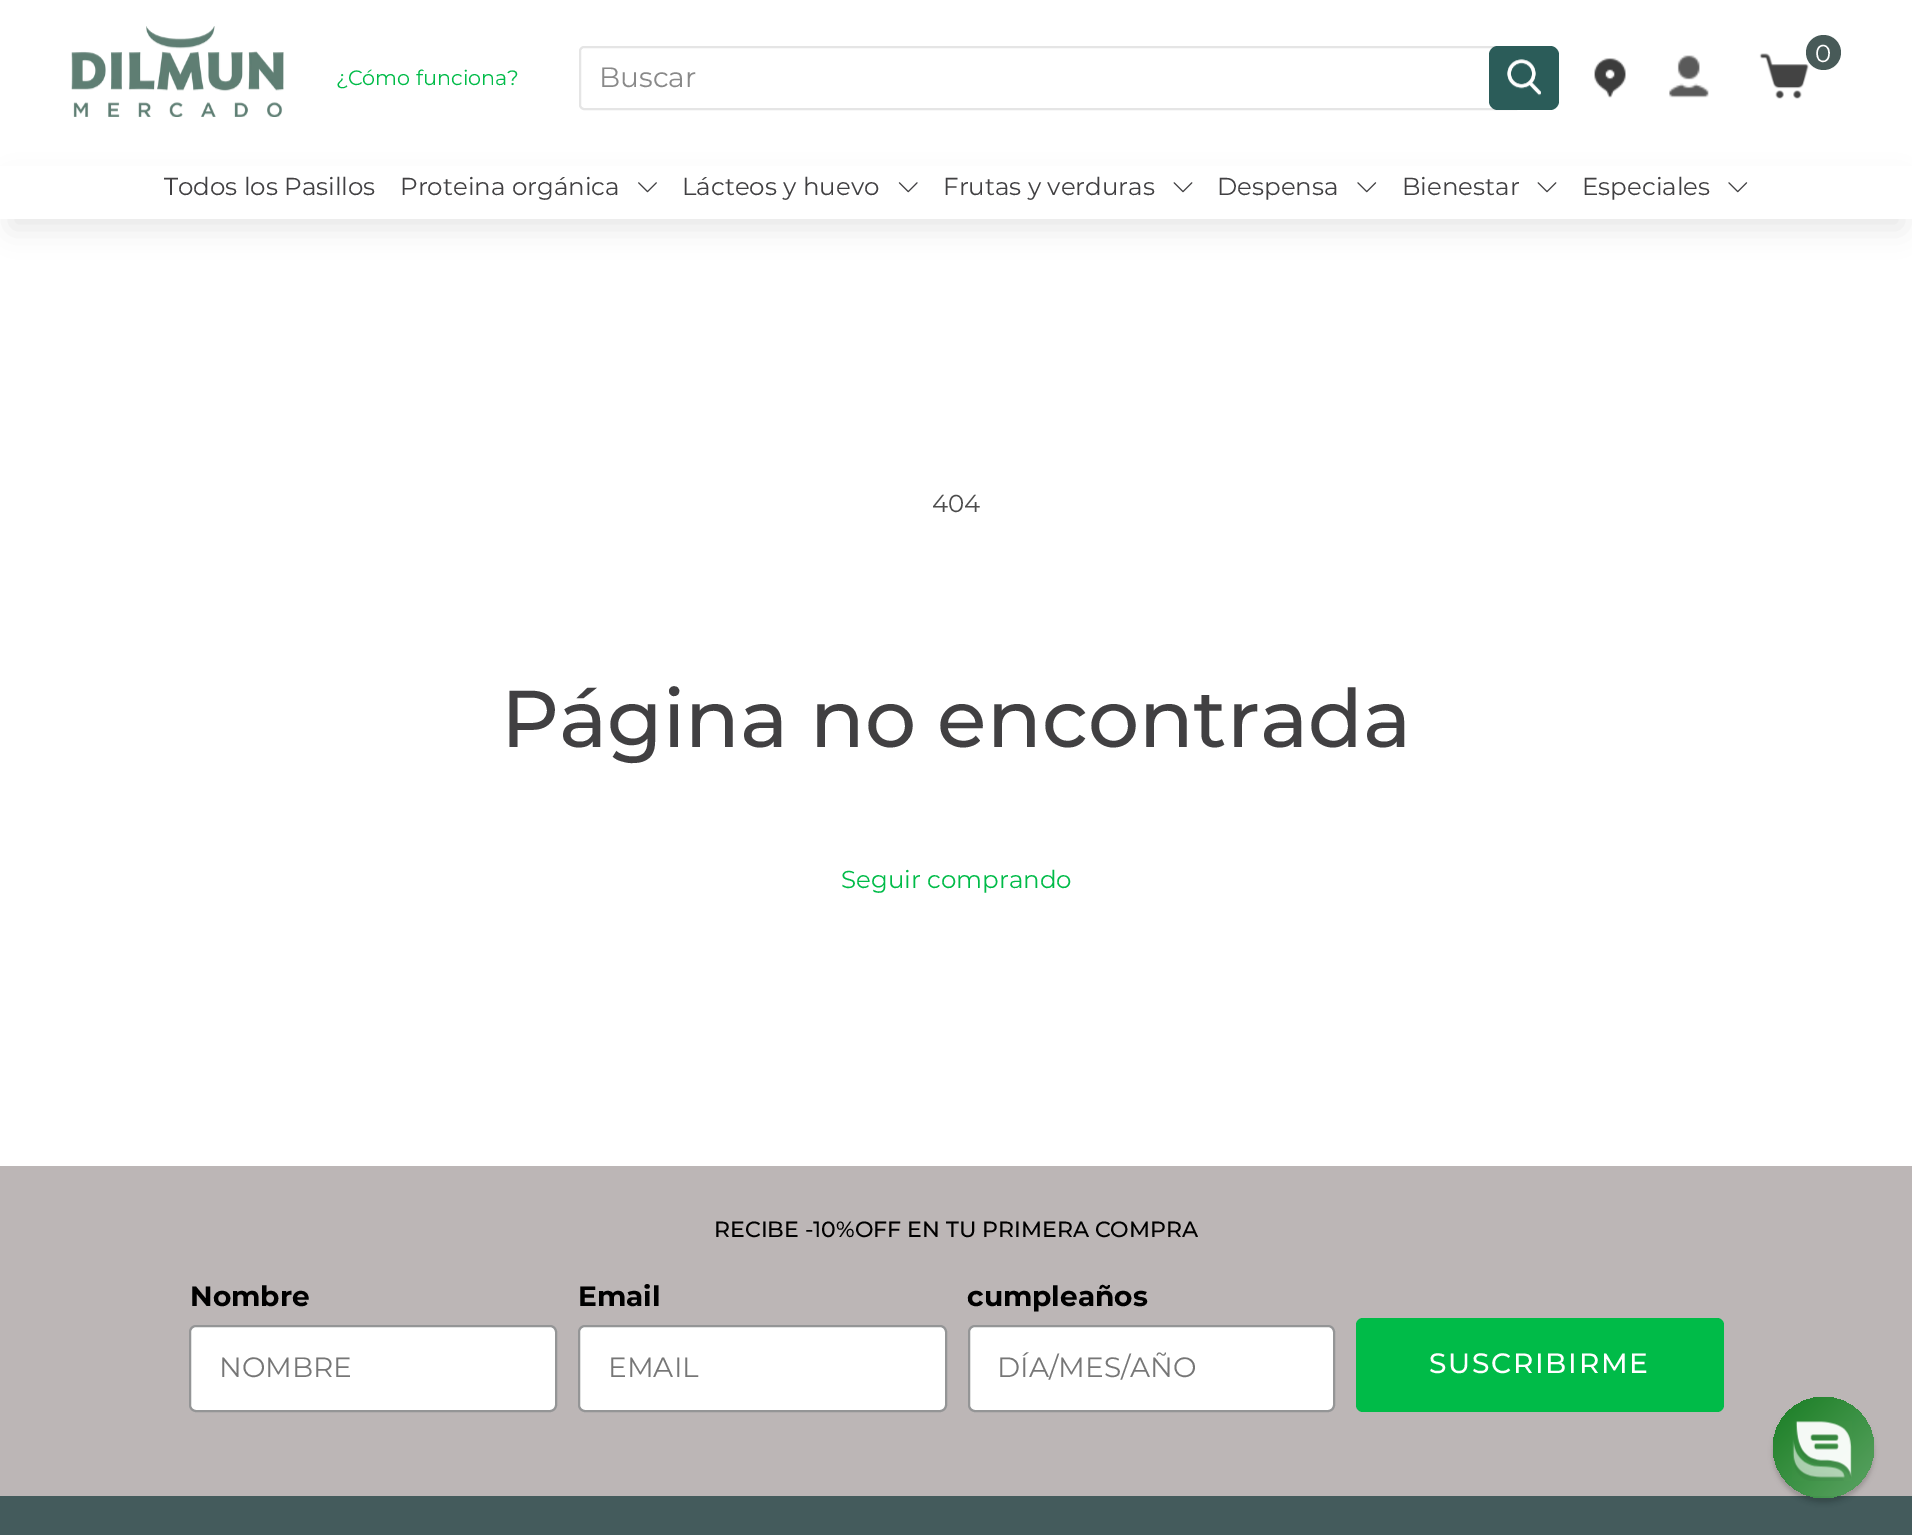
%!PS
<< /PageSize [1912 1535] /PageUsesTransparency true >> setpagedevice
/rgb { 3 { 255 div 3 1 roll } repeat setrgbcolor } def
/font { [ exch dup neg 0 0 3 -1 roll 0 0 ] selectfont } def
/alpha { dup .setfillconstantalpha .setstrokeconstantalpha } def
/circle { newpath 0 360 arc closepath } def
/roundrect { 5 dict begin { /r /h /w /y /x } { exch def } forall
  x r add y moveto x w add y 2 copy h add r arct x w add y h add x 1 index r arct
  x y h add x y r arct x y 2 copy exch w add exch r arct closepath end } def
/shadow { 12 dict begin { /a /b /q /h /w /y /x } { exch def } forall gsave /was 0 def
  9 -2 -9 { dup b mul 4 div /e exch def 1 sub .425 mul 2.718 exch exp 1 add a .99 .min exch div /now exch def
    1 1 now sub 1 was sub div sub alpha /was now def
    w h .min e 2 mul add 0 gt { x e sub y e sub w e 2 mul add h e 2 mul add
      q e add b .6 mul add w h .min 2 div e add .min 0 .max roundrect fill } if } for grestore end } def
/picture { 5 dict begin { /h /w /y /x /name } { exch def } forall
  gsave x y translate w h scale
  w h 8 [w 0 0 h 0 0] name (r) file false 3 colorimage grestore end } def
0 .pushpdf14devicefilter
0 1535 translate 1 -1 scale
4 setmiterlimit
255 255 255 rgb
0 0 1912 1535 rectfill
(img/1.rgb) 71 26 213 91 picture
229 229 229 rgb
2 setlinewidth
584 47 moveto 1516 47 lineto 1516 109 lineto 584 109 lineto 582 109 580 107 580 105 curveto 580 51 lineto 580 49 582 47 584 47 curveto closepath stroke
43 92 89 rgb
1489 46 70 64 9 roundrect fill
(img/2.rgb) 1507 59 34 37 picture
(img/3.rgb) 1594 58 32 40 picture
(img/4.rgb) 1669 55 40 43 picture
(img/5.rgb) 1759 53 50 46 picture
72 90 88 rgb
1823.5 52.5 17.5 circle fill
0 0 0 rgb
11 184 1891 44 0 14 0.1 shadow
255 255 255 rgb
0 166 1912 53 rectfill
(img/6.rgb) 638 182 19 11 picture
(img/7.rgb) 898 182 20 11 picture
(img/8.rgb) 1173 182 20 11 picture
(img/9.rgb) 1357 182 20 11 picture
(img/8.rgb) 1537 182 20 11 picture
(img/9.rgb) 1728 182 20 11 picture
188 182 182 rgb
0 1166 1912 330 rectfill
255 255 255 rgb
190 1326 366 85 6 roundrect gsave fill grestore
148 149 150 rgb
stroke
255 255 255 rgb
579 1326 367 85 6 roundrect gsave fill grestore
148 149 150 rgb
stroke
255 255 255 rgb
969 1326 365 85 6 roundrect gsave fill grestore
148 149 150 rgb
stroke
0 187 72 rgb
1356 1318 368 94 7 roundrect fill
68 91 92 rgb
0 1496 1912 39 rectfill
gsave
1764 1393 moveto 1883 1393 lineto 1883 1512 lineto 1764 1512 lineto closepath 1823.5 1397 moveto 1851.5 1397 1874 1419.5 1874 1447.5 curveto 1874 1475.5 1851.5 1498 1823.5 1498 curveto 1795.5 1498 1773 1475.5 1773 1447.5 curveto 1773 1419.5 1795.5 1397 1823.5 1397 curveto closepath eoclip newpath
0 0 0 rgb
1773 1402 101 101 50.5 2.5 0.19 shadow
grestore
0.95 alpha
gsave 1823.5 1447.5 50.5 circle clip newpath
<< /ShadingType 2 /ColorSpace /DeviceRGB /Coords [1773 1397 1874 1498] /Extend [true true] /Function << /FunctionType 2 /Domain [0 1] /C0 [0.067 0.482 0.11] /C1 [0.345 0.639 0.376] /N 1 >> >> shfill grestore
1 alpha
(img/10.rgb) 1792 1421 60 60 picture
/Montserrat-Regular 20.75 font
0 187 72 rgb
336 85 moveto (¿Cómo funciona?) show
/Montserrat-Regular 28 font
137 137 137 rgb
599 87 moveto (Buscar) show
/Montserrat-Regular 24.5 font
255 255 255 rgb
1815 62 moveto (0) show
65 64 66 rgb
[
  [(Todos los Pasillos) 164 195]
  [(Proteina orgánica) 400 195]
  [(Lácteos y huevo) 682 195]
  [(Frutas y verduras) 943 195]
  [(Despensa) 1217 195]
  [(Bienestar) 1402 195]
  [(Especiales) 1582 195]
] { aload pop moveto show } forall
77 77 77 rgb
932 512 moveto (404) show
/Montserrat-Medium 80.5 font
65 64 66 rgb
501 747 moveto (Página no encontrada) show
/Montserrat-Regular 24.5 font
0 187 72 rgb
841 888 moveto (Seguir comprando) show
/Montserrat-Medium 22.05 font
0 0 0 rgb
714 1237 moveto (RECIBE -10%OFF EN TU PRIMERA COMPRA) show
/Montserrat-Bold 28 font
190 1306 moveto (Nombre) show
/Montserrat-Regular 28 font
118 118 118 rgb
219 1377 moveto (NOMBRE) show
/Montserrat-Bold 28 font
0 0 0 rgb
578 1306 moveto (Email) show
/Montserrat-Regular 28 font
118 118 118 rgb
608 1377 moveto (EMAIL) show
/Montserrat-Bold 28 font
0 0 0 rgb
967 1306 moveto (cumpleaños) show
/Montserrat-Regular 28 font
118 118 118 rgb
997 1377 moveto (DÍA/MES/AÑO) show
/Montserrat-Medium 28 font
255 255 255 rgb
1429 1373 moveto 1.75 0 (SUSCRIBIRME) ashow
.poppdf14devicefilter showpage
